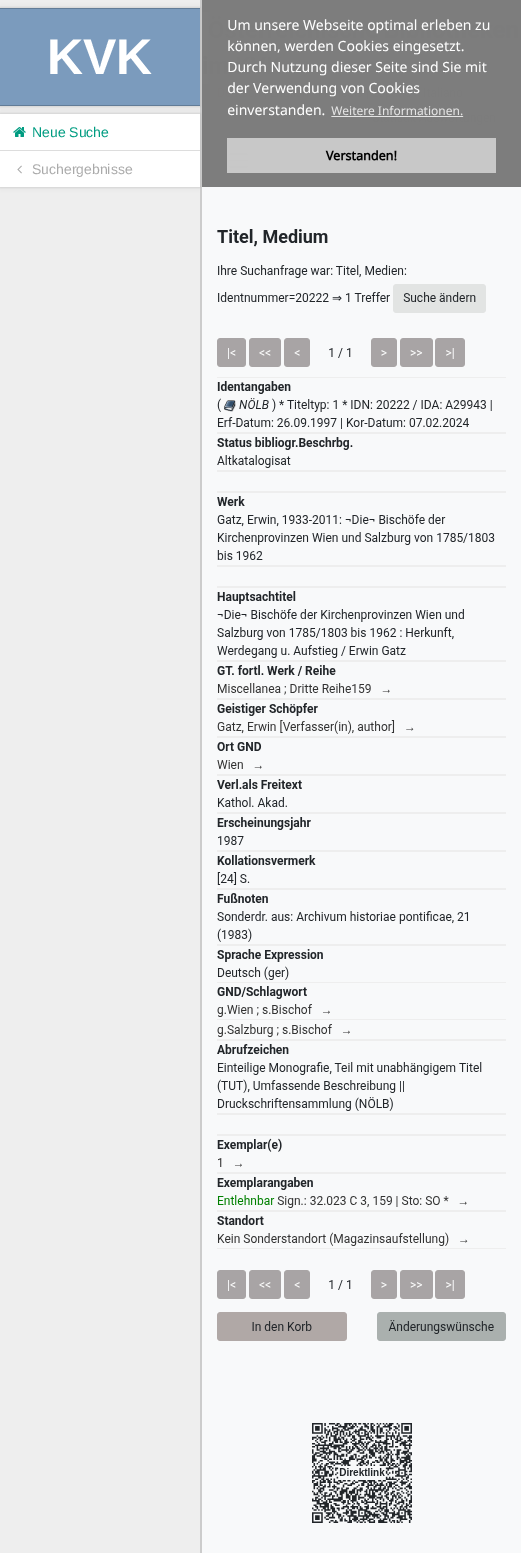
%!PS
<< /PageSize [521 1553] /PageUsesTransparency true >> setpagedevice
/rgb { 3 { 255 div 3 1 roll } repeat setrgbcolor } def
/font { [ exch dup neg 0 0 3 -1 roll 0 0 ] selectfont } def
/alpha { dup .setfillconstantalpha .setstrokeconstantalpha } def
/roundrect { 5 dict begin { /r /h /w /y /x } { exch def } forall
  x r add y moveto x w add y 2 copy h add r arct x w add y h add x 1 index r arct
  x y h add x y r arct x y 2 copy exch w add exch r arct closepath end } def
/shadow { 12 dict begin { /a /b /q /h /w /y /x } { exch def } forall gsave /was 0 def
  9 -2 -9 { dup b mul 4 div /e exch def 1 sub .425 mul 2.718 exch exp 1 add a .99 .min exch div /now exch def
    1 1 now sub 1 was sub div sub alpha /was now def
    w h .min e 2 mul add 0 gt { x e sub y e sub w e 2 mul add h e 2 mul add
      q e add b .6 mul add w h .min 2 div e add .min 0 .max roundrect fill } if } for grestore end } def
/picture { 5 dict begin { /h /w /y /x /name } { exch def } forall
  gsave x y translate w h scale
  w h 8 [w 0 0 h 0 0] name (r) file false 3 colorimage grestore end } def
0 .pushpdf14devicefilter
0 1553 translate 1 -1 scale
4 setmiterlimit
204 204 204 rgb
0 0 521 1553 rectfill
238 238 238 rgb
0 0 200 1553 rectfill
(img/3.rgb) 202 0 319 1553 picture
gsave
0 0 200 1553 rectclip
0 0 0 rgb
0 8 200 98 0 2.5 0.1 shadow
grestore
0 0 0 rgb
0 8 200 98 0 1 0.1 shadow
[
  [0 9 200 96 123 155 189]
  [0 8 200 1 98 124 151]
  [0 105 200 1 98 124 151]
] { aload pop rgb rectfill } forall
gsave
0 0 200 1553 rectclip
0 0 0 rgb
0 114 200 73 0 2.5 0.1 shadow
grestore
0 0 0 rgb
0 114 200 73 0 1 0.1 shadow
255 255 255 rgb
0 114 200 73 rectfill
221 221 221 rgb
0 150 200 1 rectfill
(img/1.rgb) 13 127 13 10 picture
(img/2.rgb) 17 165 5 9 picture
/LiberationSans-Bold 50 font
255 255 255 rgb
47 74 moveto (KVK) show
/LiberationSans-Regular 14 font
0 156 129 rgb
32 137 moveto (Neue Suche) show
170 170 170 rgb
32 174 moveto (Suchergebnisse) show
.poppdf14devicefilter showpage
